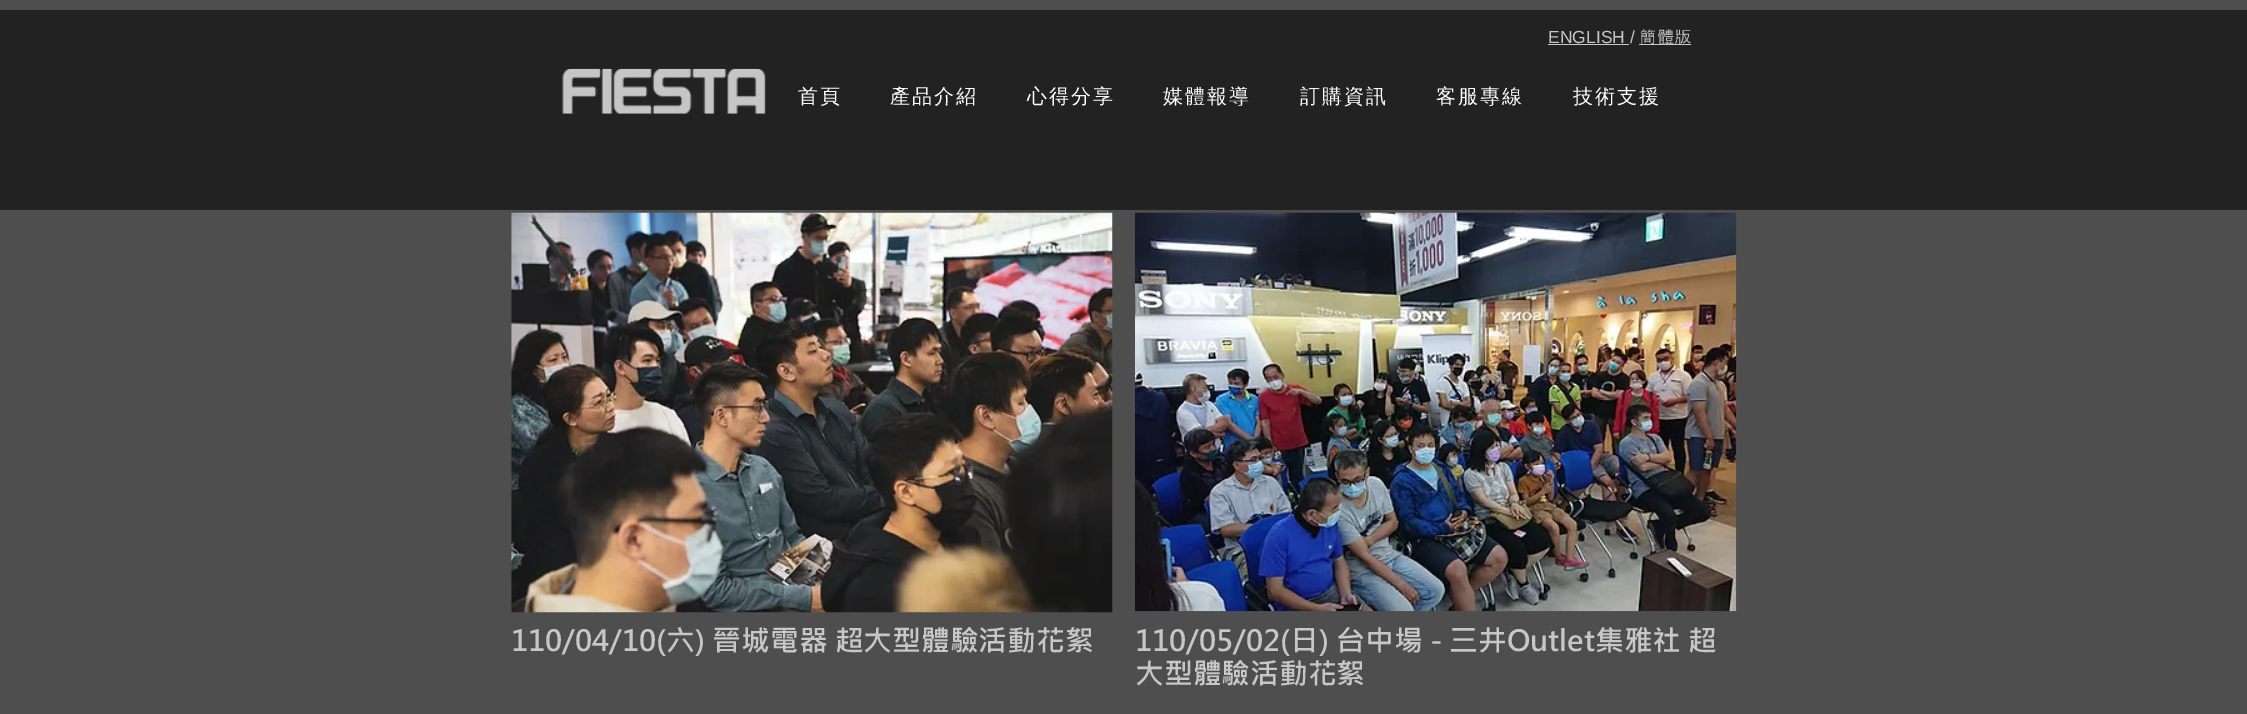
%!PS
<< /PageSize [2247 714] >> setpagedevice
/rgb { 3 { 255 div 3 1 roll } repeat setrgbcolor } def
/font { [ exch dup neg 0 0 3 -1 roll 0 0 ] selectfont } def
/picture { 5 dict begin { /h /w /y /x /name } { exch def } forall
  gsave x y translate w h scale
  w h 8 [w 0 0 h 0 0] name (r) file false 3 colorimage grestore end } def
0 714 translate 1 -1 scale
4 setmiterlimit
78 78 78 rgb
0 0 2247 714 rectfill
[
  [0 10 2247 200 34 34 34]
  [1548 44 81 1 199 199 199]
  [1639 44 52 1 199 199 199]
] { aload pop rgb rectfill } forall
(img/1.rgb) 562 68 204 46 picture
(img/2.rgb) 511 212 602 401 picture
(img/3.rgb) 1135 212 602 400 picture
/LiberationSans-Regular 17.5 font
1548 43 moveto (ENGLISH /) show
/Dotum-Regular 17.5 font
1639 43 moveto (簡體版) show
/WenQuanYiZenHei-Medium 20 font
255 255 255 rgb
798 103 moveto 2 0 (首頁) ashow
890 103 moveto 2 0 (產品介紹) ashow
1027 103 moveto 2 0 (心得分享) ashow
1163 103 moveto 2 0 (媒體報導) ashow
1300 103 moveto 2 0 (訂購資訊) ashow
1436 103 moveto 2 0 (客服專線) ashow
1573 103 moveto 2 0 (技術支援) ashow
/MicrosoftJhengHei-Bold 28.75 font
199 199 199 rgb
[
  [(110/04/10\(六\) 晉城電器 超大型體驗活動花絮) 511 651]
  [(110/05/02\(日\) 台中場 - 三井Outlet集雅社 超) 1135 651]
  [(大型體驗活動花絮) 1135 684]
] { aload pop moveto show } forall
showpage
